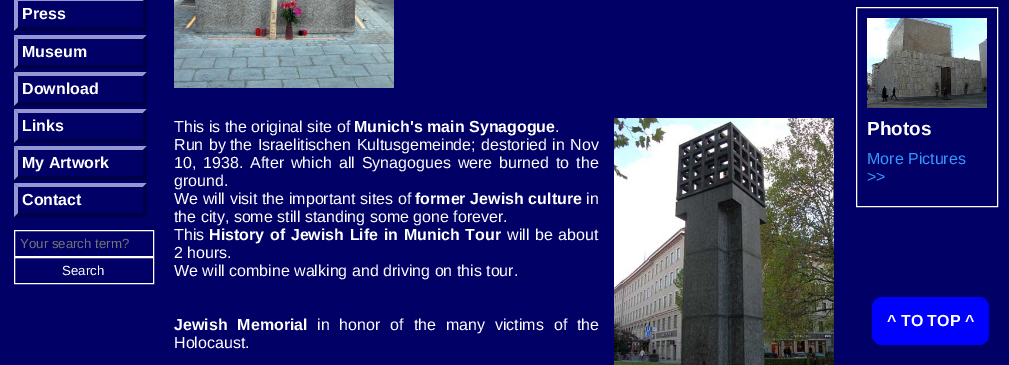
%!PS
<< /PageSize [1009 365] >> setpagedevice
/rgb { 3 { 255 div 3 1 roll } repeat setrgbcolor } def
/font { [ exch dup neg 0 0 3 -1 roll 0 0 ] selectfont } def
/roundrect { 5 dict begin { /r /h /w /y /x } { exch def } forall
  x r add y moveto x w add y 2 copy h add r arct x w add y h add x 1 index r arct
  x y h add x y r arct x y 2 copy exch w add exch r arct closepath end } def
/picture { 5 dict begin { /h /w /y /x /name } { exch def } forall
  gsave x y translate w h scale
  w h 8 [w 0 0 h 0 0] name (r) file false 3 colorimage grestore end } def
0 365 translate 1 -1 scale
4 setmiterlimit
0 0 102 rgb
0 0 1009 365 rectfill
150 150 210 rgb
14 -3 moveto 147 -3 lineto 143 1 lineto 18 1 lineto closepath fill
0 0 72 rgb
147 -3 moveto 147 31 lineto 143 27 lineto 143 1 lineto closepath fill
147 31 moveto 14 31 lineto 18 27 lineto 143 27 lineto closepath fill
150 150 210 rgb
14 31 moveto 14 -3 lineto 18 1 lineto 18 27 lineto closepath fill
14 35 moveto 147 35 lineto 143 39 lineto 18 39 lineto closepath fill
0 0 72 rgb
147 35 moveto 147 69 lineto 143 65 lineto 143 39 lineto closepath fill
147 69 moveto 14 69 lineto 18 65 lineto 143 65 lineto closepath fill
150 150 210 rgb
14 69 moveto 14 35 lineto 18 39 lineto 18 65 lineto closepath fill
14 72 moveto 147 72 lineto 143 76 lineto 18 76 lineto closepath fill
0 0 72 rgb
147 72 moveto 147 106 lineto 143 102 lineto 143 76 lineto closepath fill
147 106 moveto 14 106 lineto 18 102 lineto 143 102 lineto closepath fill
150 150 210 rgb
14 106 moveto 14 72 lineto 18 76 lineto 18 102 lineto closepath fill
14 109 moveto 147 109 lineto 143 113 lineto 18 113 lineto closepath fill
0 0 72 rgb
147 109 moveto 147 143 lineto 143 139 lineto 143 113 lineto closepath fill
147 143 moveto 14 143 lineto 18 139 lineto 143 139 lineto closepath fill
150 150 210 rgb
14 143 moveto 14 109 lineto 18 113 lineto 18 139 lineto closepath fill
14 146 moveto 147 146 lineto 143 150 lineto 18 150 lineto closepath fill
0 0 72 rgb
147 146 moveto 147 180 lineto 143 176 lineto 143 150 lineto closepath fill
147 180 moveto 14 180 lineto 18 176 lineto 143 176 lineto closepath fill
150 150 210 rgb
14 180 moveto 14 146 lineto 18 150 lineto 18 176 lineto closepath fill
14 183 moveto 147 183 lineto 143 187 lineto 18 187 lineto closepath fill
0 0 72 rgb
147 183 moveto 147 217 lineto 143 213 lineto 143 187 lineto closepath fill
147 217 moveto 14 217 lineto 18 213 lineto 143 213 lineto closepath fill
150 150 210 rgb
14 217 moveto 14 183 lineto 18 187 lineto 18 213 lineto closepath fill
255 255 255 rgb
14.5 230.5 139 26 rectstroke
14.5 257.5 139 26 rectstroke
(img/1.rgb) 174 0 220 88 picture
(img/2.rgb) 614 118 220 247 picture
856.5 7.5 141 199 rectstroke
(img/3.rgb) 867 18 120 90 picture
0 0 255 rgb
872 297 117 48 10 roundrect fill
/LiberationSans-Bold 16 font
255 255 255 rgb
[
  [(Press) 22 19]
  [(Museum) 22 57]
  [(Download) 22 94]
  [(Links) 22 131]
  [(My Artwork) 22 168]
  [(Contact) 22 205]
] { aload pop moveto show } forall
/LiberationSans-Regular 13.25 font
117 117 117 rgb
20 248 moveto (Your search term?) show
255 255 255 rgb
62 275 moveto (Search) show
/LiberationSans-Regular 16 font
174 132 moveto (This is the original site of) show
/LiberationSans-Bold 16 font
354 132 moveto (Munich's main Synagogue) show
/LiberationSans-Regular 16 font
555 132 moveto (.) show
174 150 moveto 1 0 32 (Run by) widthshow
230 150 moveto 1 0 32 (the Israelitischen Kultusgemeinde; destoried in Nov) widthshow
174 168 moveto 2.5 0 32 (10, 1938. After which all Synagogues were burned to the) widthshow
174 186 moveto (ground.) show
174 204 moveto 0.25 0 32 (We will visit the important sites of) widthshow
/LiberationSans-Bold 16 font
415 204 moveto 0.25 0 32 (former Jewish culture) widthshow
/LiberationSans-Regular 16 font
[
  [(in) 586 204]
  [(the city, some still standing some gone forever.) 174 222]
  [(This) 174 240]
] { aload pop moveto show } forall
/LiberationSans-Bold 16 font
209 240 moveto 1.25 0 32 (History of Jewish Life in Munich Tour) widthshow
/LiberationSans-Regular 16 font
507 240 moveto 1.25 0 32 (will be about) widthshow
174 258 moveto (2 hours.) show
174 276 moveto (We will combine walking and driving on this tour.) show
/LiberationSans-Bold 16 font
174 330 moveto 5.5 0 32 (Jewish Memorial) widthshow
/LiberationSans-Regular 16 font
317 330 moveto 5.5 0 32 (in honor of the many victims of the) widthshow
174 348 moveto (Holocaust.) show
/LiberationSans-Bold 19 font
867 135 moveto (Photos) show
/LiberationSans-Regular 16 font
51 153 255 rgb
867 164 moveto (More Pictures) show
867 182 moveto (>>) show
/LiberationSans-Bold 16 font
255 255 255 rgb
887 326 moveto (^ TO TOP ^) show
showpage
